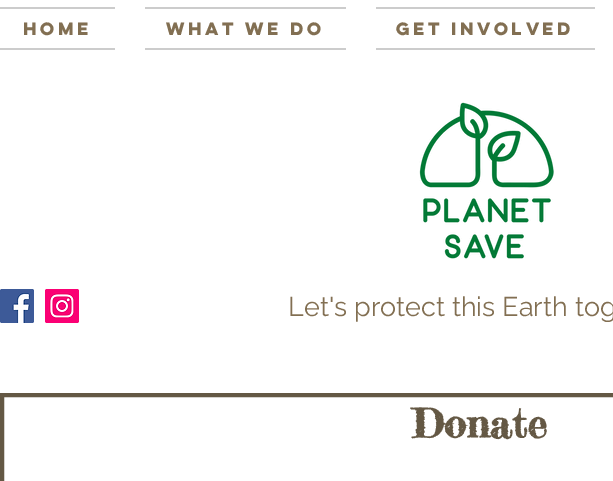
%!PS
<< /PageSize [613 481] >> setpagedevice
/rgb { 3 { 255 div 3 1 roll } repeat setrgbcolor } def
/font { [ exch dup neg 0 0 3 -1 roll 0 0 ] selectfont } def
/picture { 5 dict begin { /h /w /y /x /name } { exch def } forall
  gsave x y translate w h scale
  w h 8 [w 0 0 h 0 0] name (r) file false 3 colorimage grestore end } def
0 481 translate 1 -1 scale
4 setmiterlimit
255 255 255 rgb
0 0 613 481 rectfill
[
  [0 7 115 2 204 204 204]
  [0 48 115 2 204 204 204]
  [145 7 201 2 204 204 204]
  [145 48 201 2 204 204 204]
  [376 7 219 2 204 204 204]
  [376 48 219 2 204 204 204]
] { aload pop rgb rectfill } forall
(img/1.rgb) 419 102 135 157 picture
(img/2.rgb) 0 289 34 34 picture
(img/3.rgb) 45 289 34 34 picture
100 88 68 rgb
4 setlinewidth
2 395 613 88 rectstroke
/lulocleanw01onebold-Bold 16 font
130 111 82 rgb
[
  [(Home) 23 35]
  [(What We Do) 166 35]
  [(Get Involved) 396 35]
] { aload pop moveto show } forall
/Raleway-Regular 27 font
288 316 moveto (Let's protect this Earth tog) show
/FrederickatheGreat-Bold 40 font
100 88 68 rgb
412 438 moveto (Donate) show
showpage
